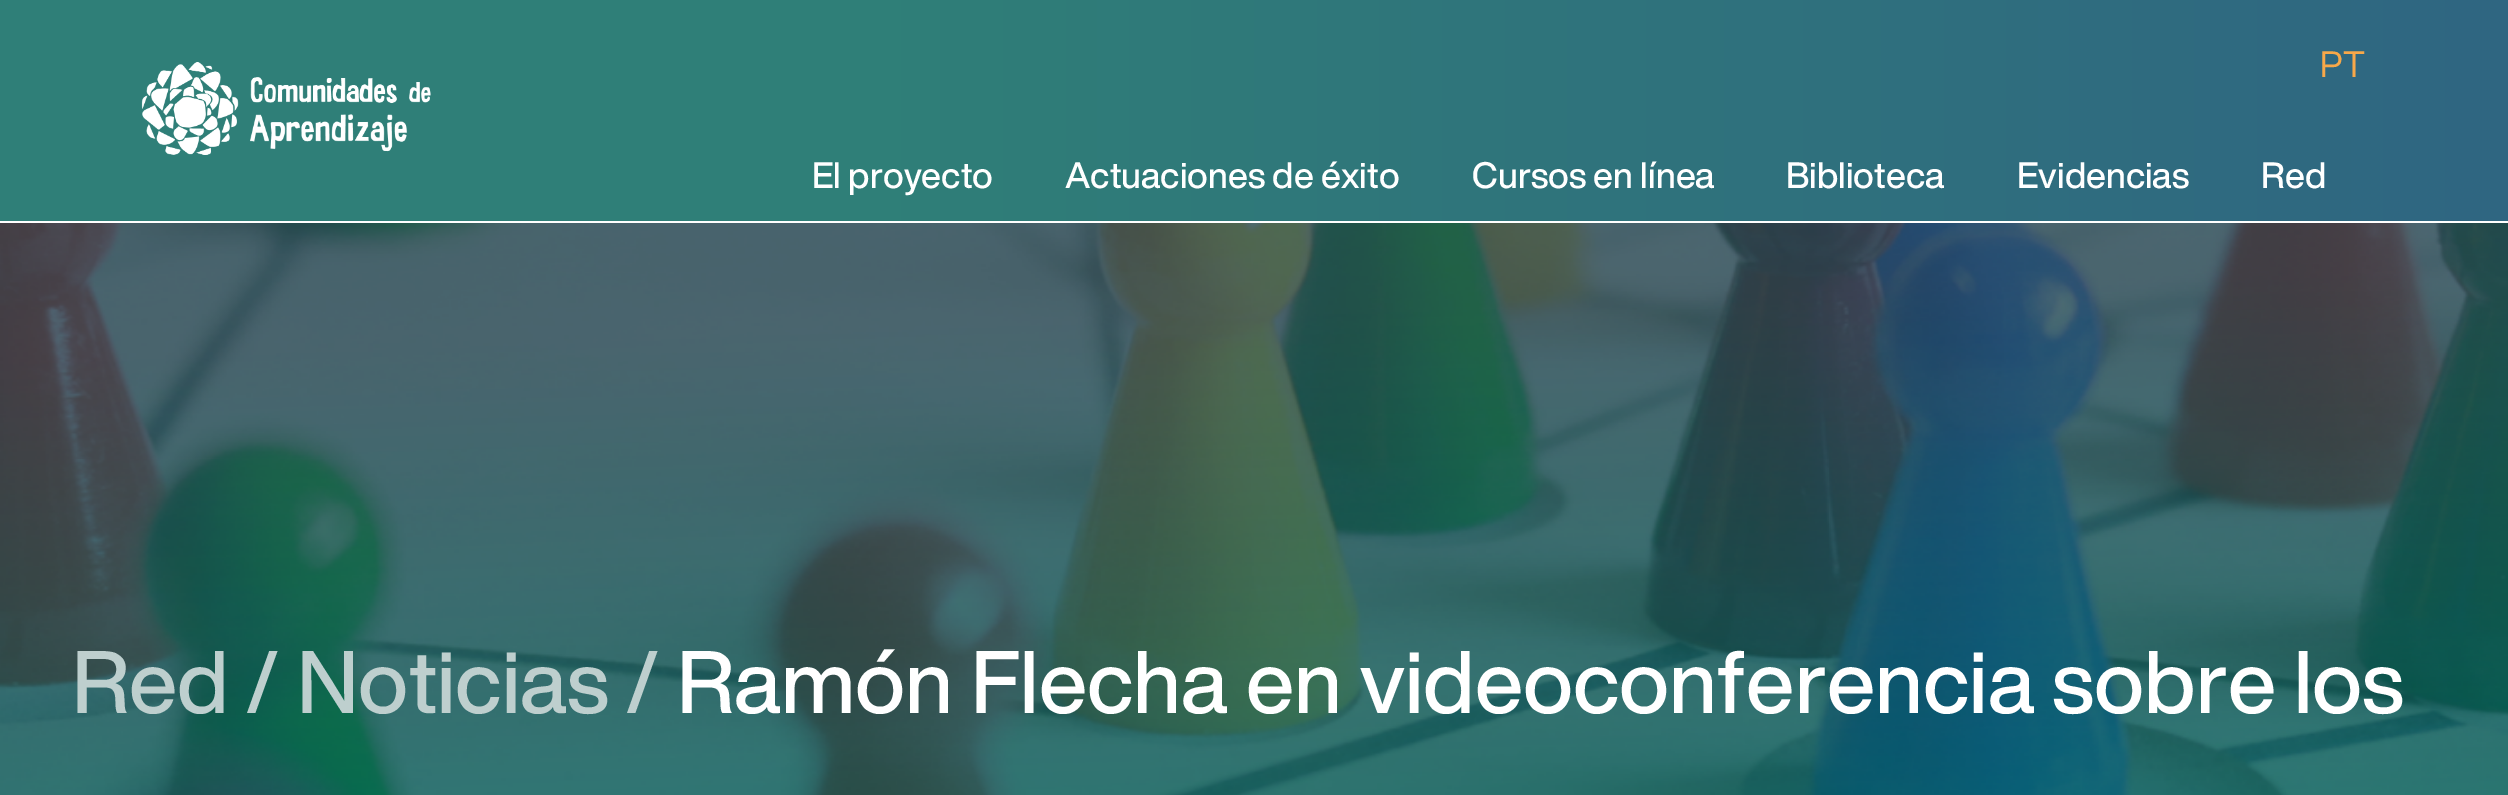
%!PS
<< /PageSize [2508 795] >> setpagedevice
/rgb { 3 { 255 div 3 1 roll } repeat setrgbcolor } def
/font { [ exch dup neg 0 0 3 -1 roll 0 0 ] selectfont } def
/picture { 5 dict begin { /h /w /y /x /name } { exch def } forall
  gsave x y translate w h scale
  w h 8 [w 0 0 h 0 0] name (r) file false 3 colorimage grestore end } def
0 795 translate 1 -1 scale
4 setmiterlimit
255 255 255 rgb
0 0 2508 795 rectfill
gsave 0 0 moveto 2508 0 lineto 2508 221 lineto 0 221 lineto closepath clip newpath
<< /ShadingType 2 /ColorSpace /DeviceRGB /Coords [0 110 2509 110] /Extend [true true] /Function << /FunctionType 3 /Domain [0 1] /Functions [<< /FunctionType 2 /Domain [0 1] /C0 [0.184 0.498 0.471] /C1 [0.184 0.498 0.471] /N 1 >> << /FunctionType 2 /Domain [0 1] /C0 [0.184 0.498 0.471] /C1 [0.184 0.4 0.51] /N 1 >>] /Bounds [0.35] /Encode [0 1 0 1] >> >> shfill grestore
(img/1.rgb) 141 62 290 93 picture
(img/2.rgb) 0 223 2508 572 picture
/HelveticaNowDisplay-Regular 36 font
248 168 73 rgb
2320 77 moveto (PT) show
/HelveticaNowDisplay-Medium 36 font
255 255 255 rgb
[
  [(El proyecto) 812 188]
  [(Actuaciones de éxito) 1065 188]
  [(Cursos en línea) 1472 188]
  [(Biblioteca) 1786 188]
  [(Evidencias) 2017 188]
  [(Red) 2261 188]
] { aload pop moveto show } forall
/HelveticaNowDisplay-Medium 87.1 font
190 207 206 rgb
72 713 moveto (Red /) show
297 713 moveto (Noticias /) show
255 255 255 rgb
677 713 moveto (Ramón Flecha en videoconferencia sobre los) show
showpage
